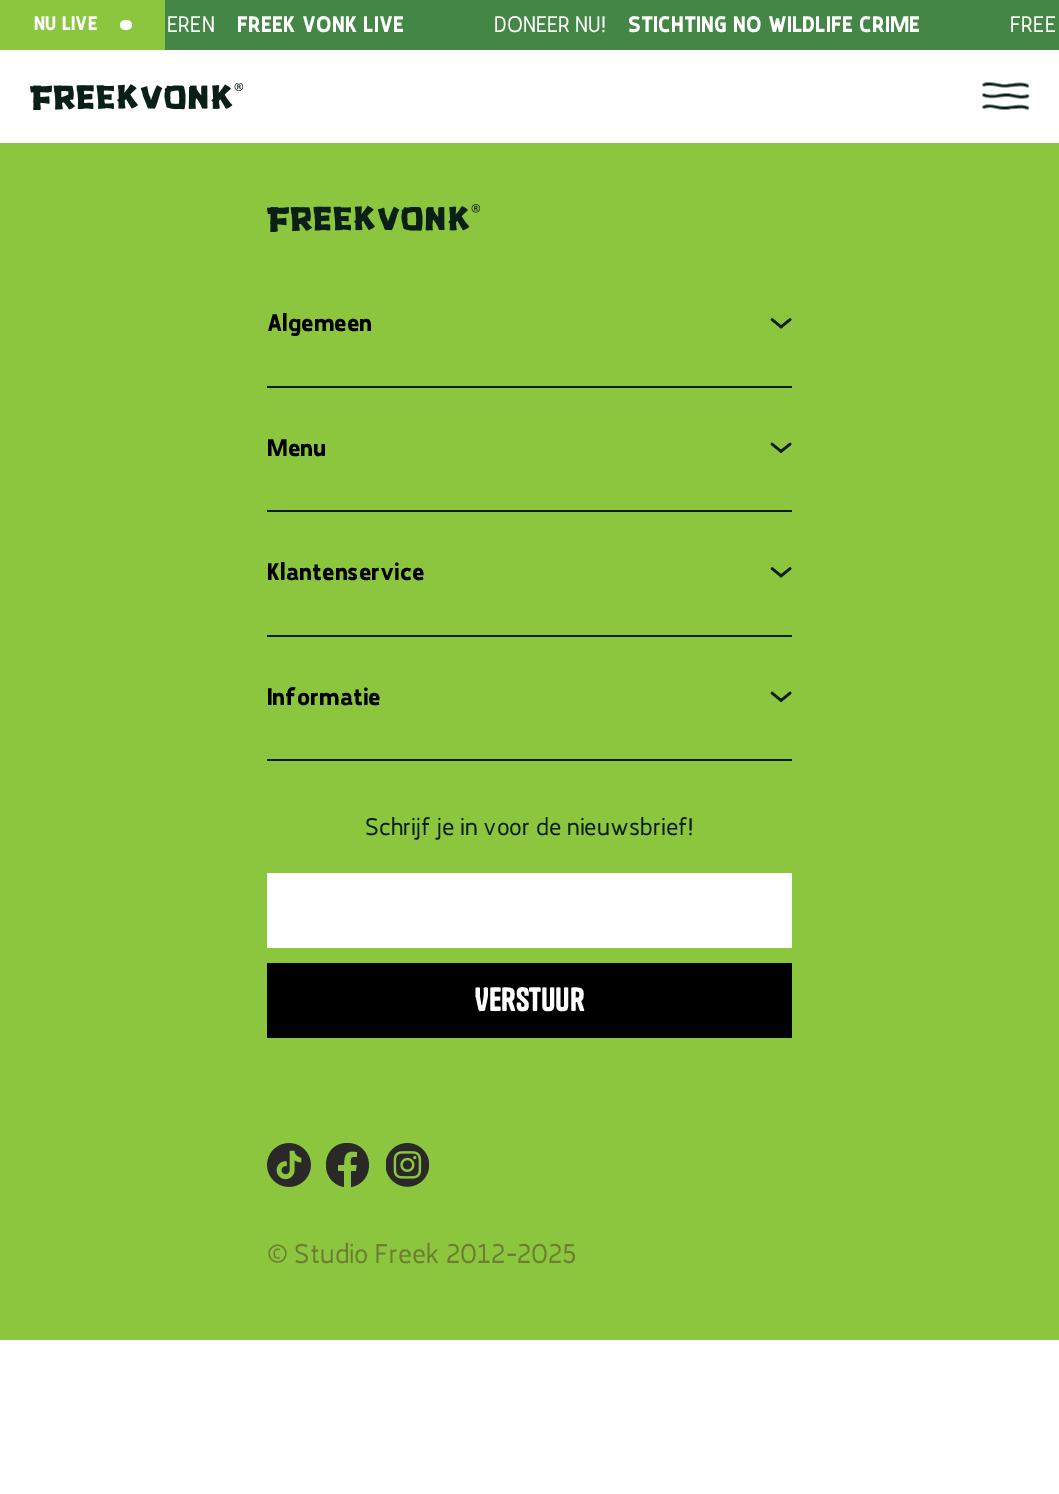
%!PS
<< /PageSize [1059 1494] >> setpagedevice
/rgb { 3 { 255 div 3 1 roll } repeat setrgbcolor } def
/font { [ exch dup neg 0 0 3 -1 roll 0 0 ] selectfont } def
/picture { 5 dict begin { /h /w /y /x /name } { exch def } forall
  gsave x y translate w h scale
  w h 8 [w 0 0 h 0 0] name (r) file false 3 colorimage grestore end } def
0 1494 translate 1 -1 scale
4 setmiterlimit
255 255 255 rgb
0 0 1059 1494 rectfill
67 134 69 rgb
165 0 894 50 rectfill
140 198 63 rgb
0 0 165 50 rectfill
255 255 255 rgb
126 20 moveto 129.5 20 132 22 132 25 curveto 132 28 129.5 30 126 30 curveto 122.5 30 120 28 120 25 curveto 120 22 122.5 20 126 20 curveto closepath fill
(img/1.rgb) 30 83 213 27 picture
(img/2.rgb) 982 82 48 28 picture
140 198 63 rgb
0 143 1059 1197 rectfill
(img/3.rgb) 267 204 213 28 picture
10 31 22 rgb
267 386 525 2 rectfill
(img/4.rgb) 770 318 22 11 picture
267 510 525 2 rectfill
(img/5.rgb) 770 442 22 11 picture
267 635 525 2 rectfill
(img/4.rgb) 770 567 22 11 picture
267 759 525 2 rectfill
(img/5.rgb) 770 691 22 11 picture
255 255 255 rgb
267 873 525 75 rectfill
0 0 0 rgb
267 963 525 75 rectfill
(img/6.rgb) 267 1143 44 44 picture
43 40 40 rgb
347 1143 moveto 321 1143 318 1182 344 1187 curveto 344 1171 lineto 338 1171 lineto 338 1165 lineto 344 1165 lineto 344 1154 346 1150 357 1152 curveto 357 1157 lineto 350 1157 351 1158 351 1165 curveto 357 1165 lineto 356 1171 lineto 351 1171 lineto 351 1187 lineto 377 1182 374 1143 347 1143 curveto fill
(img/7.rgb) 386 1143 43 44 picture
/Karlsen-Bold 19.5 font
255 255 255 rgb
34 30 moveto (NU LIVE) show
/Karlsen-Regular 22.5 font
167 32 moveto (EREN) show
/Karlsen-Bold 22.5 font
237 32 moveto (FREEK VONK LIVE) show
/Karlsen-Regular 22.5 font
494 32 moveto (DONEER NU!) show
/Karlsen-Bold 22.5 font
628 32 moveto (STICHTING NO WILDLIFE CRIME) show
/Karlsen-Regular 22.5 font
1010 32 moveto (FREE) show
/Karlsen-Bold 24 font
0 0 0 rgb
[
  [(Algemeen) 267 331]
  [(Menu) 267 456]
  [(Klantenservice) 267 580]
  [(Informatie) 267 705]
] { aload pop moveto show } forall
/Karlsen-Regular 24 font
10 31 22 rgb
365 835 moveto (Schrijf je in voor de nieuwsbrief!) show
/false-Regular 31.5 font
255 255 255 rgb
475 1011 moveto (Verstuur) show
/Karlsen-Regular 27 font
109 126 51 rgb
267 1263 moveto (© Studio Freek 2012-2025) show
showpage
